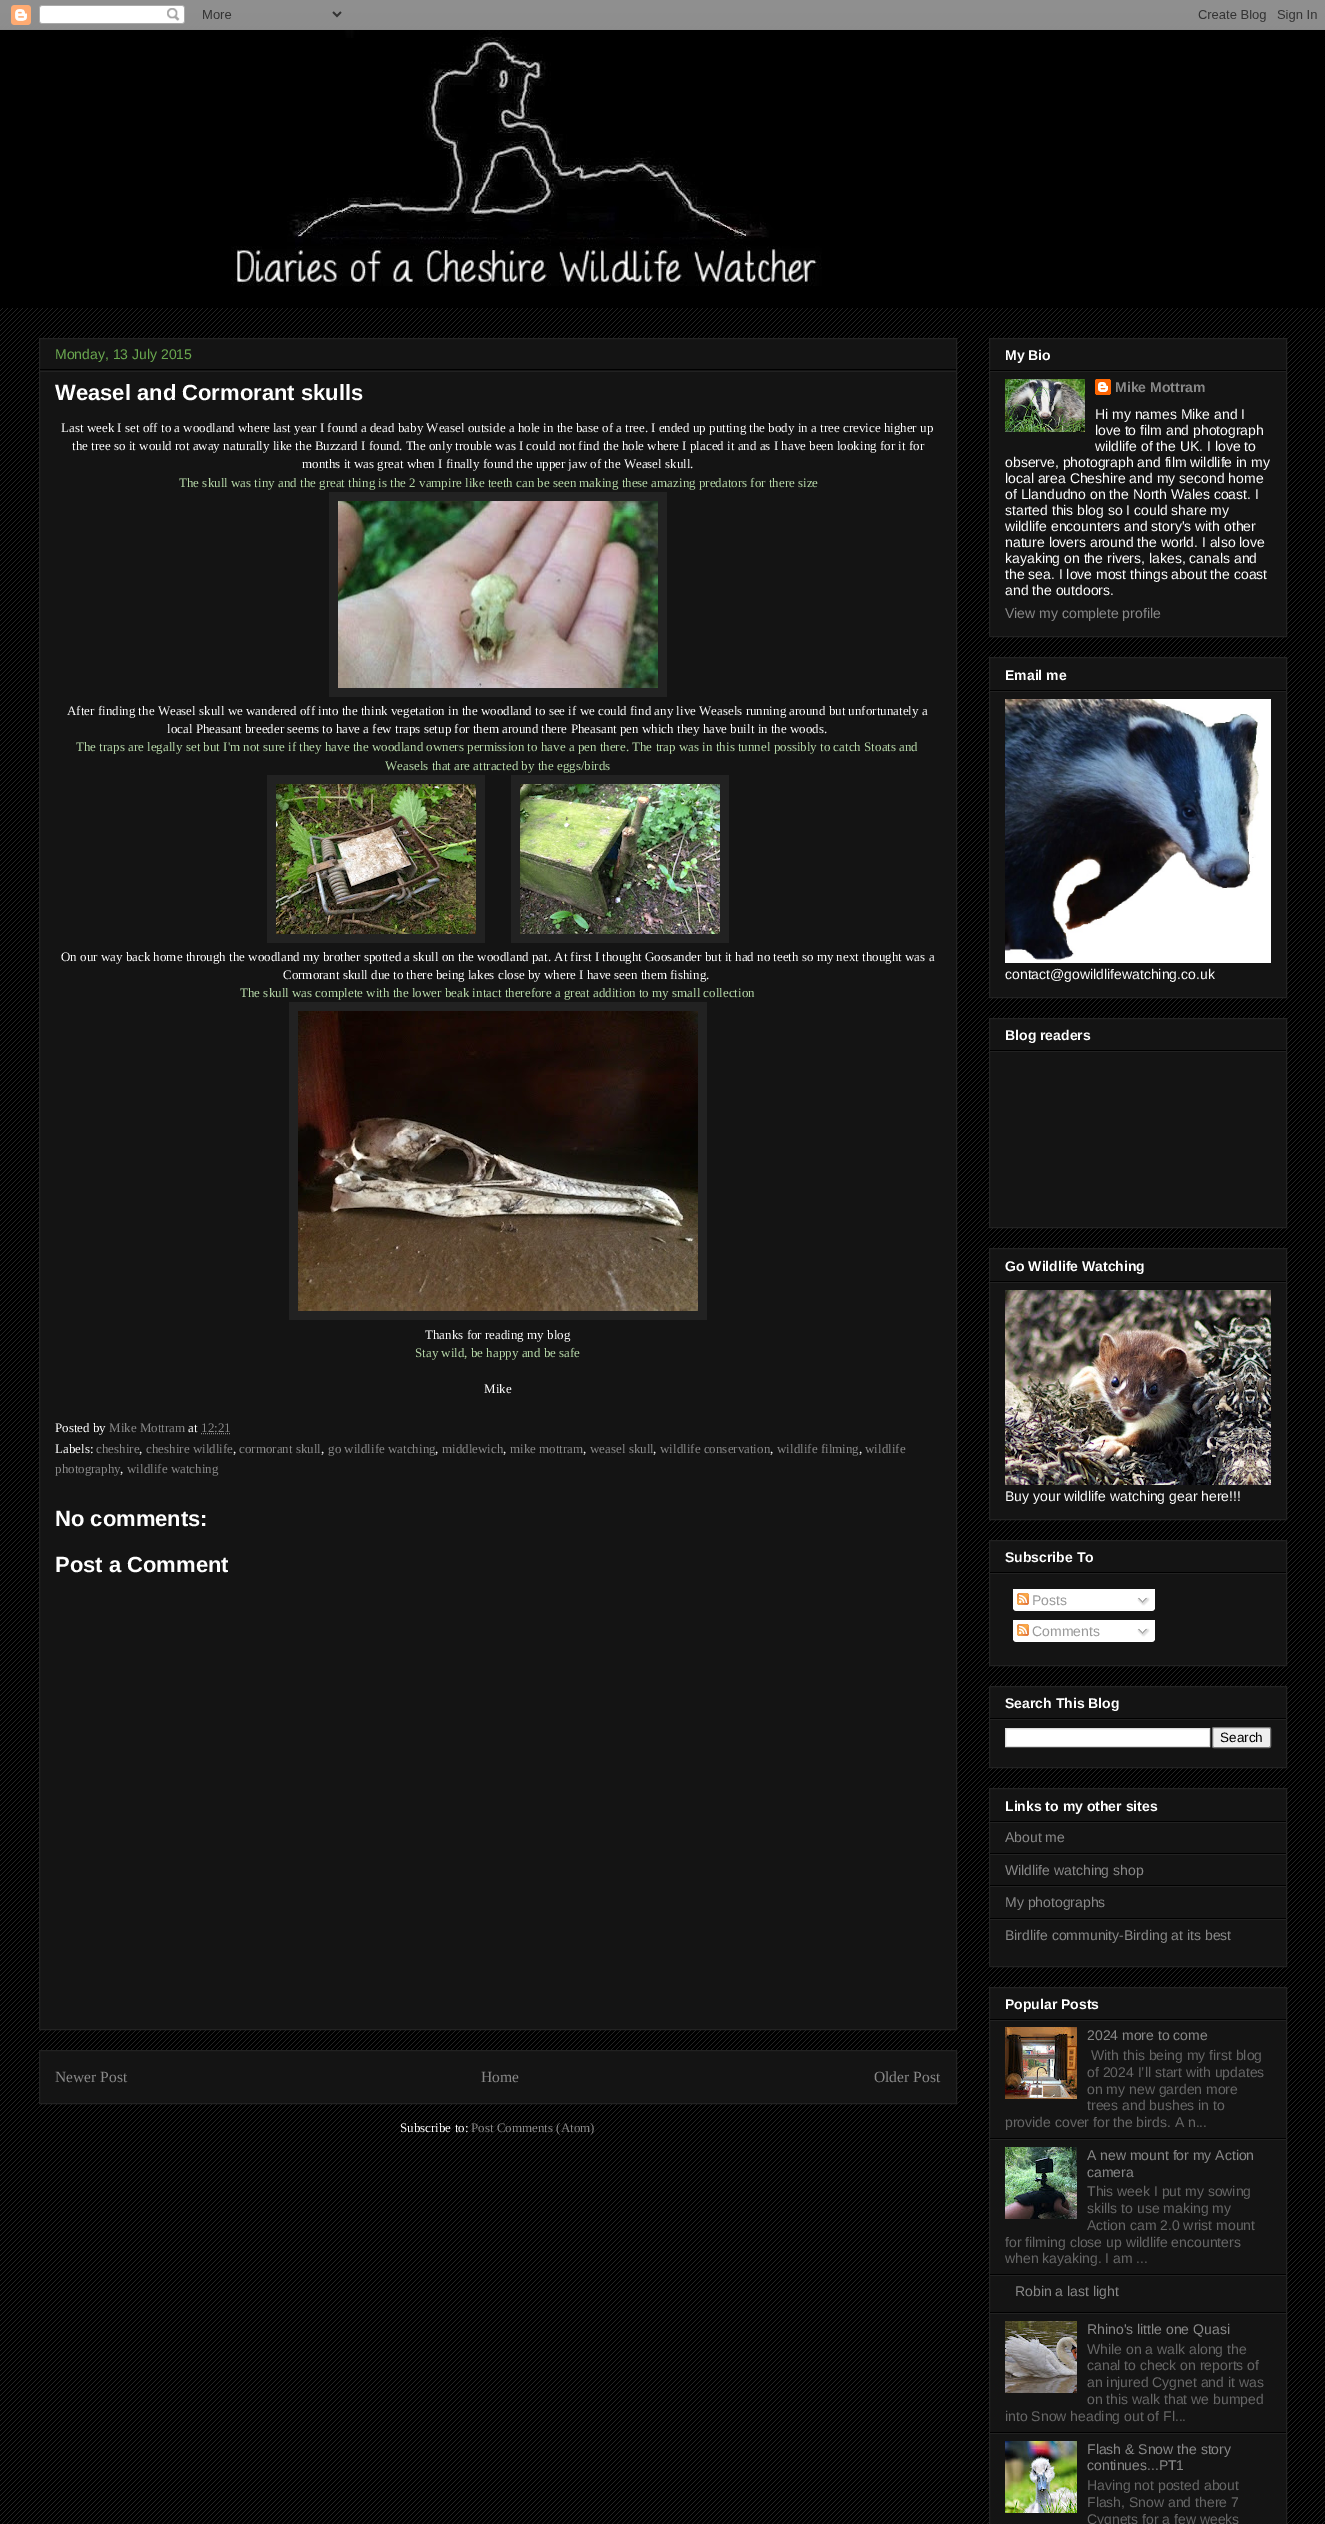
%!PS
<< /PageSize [1325 2524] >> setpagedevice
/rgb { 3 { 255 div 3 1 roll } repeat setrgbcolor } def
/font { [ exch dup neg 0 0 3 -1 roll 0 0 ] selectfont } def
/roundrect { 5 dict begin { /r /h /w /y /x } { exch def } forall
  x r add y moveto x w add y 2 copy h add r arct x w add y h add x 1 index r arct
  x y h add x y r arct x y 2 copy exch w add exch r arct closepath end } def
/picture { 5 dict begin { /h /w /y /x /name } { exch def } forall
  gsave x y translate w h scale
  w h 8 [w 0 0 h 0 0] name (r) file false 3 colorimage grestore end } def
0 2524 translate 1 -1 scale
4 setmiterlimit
0 0 0 rgb
0 0 1325 2524 rectfill
(img/1.rgb) 0 13 1325 2511 picture
(img/2.rgb) 0 0 1325 29 picture
(img/3.rgb) 0 0 1325 30 picture
0 30 1325 278 rectfill
(img/4.rgb) 231 30 591 256 picture
20 20 20 rgb
39.5 338.5 moveto 956.5 338.5 lineto 956.5 2029.5 lineto 39.5 2029.5 lineto closepath gsave fill grestore
34 34 34 rgb
stroke
[
  [40 369 916 1 0 0 0]
  [40 371 916 1 34 34 34]
  [329 492 338 205 34 34 34]
] { aload pop rgb rectfill } forall
(img/5.rgb) 338 501 320 187 picture
267 775 218 168 rectfill
511 775 218 168 rectfill
(img/6.rgb) 276 784 200 150 picture
(img/7.rgb) 520 784 200 150 picture
289 1002 418 318 rectfill
(img/8.rgb) 298 1011 400 300 picture
136 136 136 rgb
[1 1] 0 setdash
201 1433.5 moveto 230.5 1433.5 lineto stroke
20 20 20 rgb
39.5 2050.5 moveto 956.5 2050.5 lineto 956.5 2103.5 lineto 39.5 2103.5 lineto closepath gsave fill grestore
34 34 34 rgb
[] 0 setdash
stroke
20 20 20 rgb
989.5 338.5 moveto 1286.5 338.5 lineto 1286.5 636.5 lineto 989.5 636.5 lineto closepath gsave fill grestore
34 34 34 rgb
stroke
0 0 0 rgb
990 370 296 1 rectfill
34 34 34 rgb
990 371 296 1 rectfill
(img/9.rgb) 1005 379 80 53 picture
(img/10.rgb) 1095 379 16 16 picture
20 20 20 rgb
989.5 657.5 moveto 1286.5 657.5 lineto 1286.5 997.5 lineto 989.5 997.5 lineto closepath gsave fill grestore
34 34 34 rgb
stroke
0 0 0 rgb
990 690 296 1 rectfill
34 34 34 rgb
990 691 296 1 rectfill
(img/11.rgb) 1005 699 266 264 picture
20 20 20 rgb
989.5 1018.5 moveto 1286.5 1018.5 lineto 1286.5 1227.5 lineto 989.5 1227.5 lineto closepath gsave fill grestore
34 34 34 rgb
stroke
0 0 0 rgb
990 1050 296 1 rectfill
34 34 34 rgb
990 1051 296 1 rectfill
20 20 20 rgb
989.5 1248.5 moveto 1286.5 1248.5 lineto 1286.5 1519.5 lineto 989.5 1519.5 lineto closepath gsave fill grestore
34 34 34 rgb
stroke
0 0 0 rgb
990 1281 296 1 rectfill
34 34 34 rgb
990 1282 296 1 rectfill
(img/12.rgb) 1005 1290 266 195 picture
20 20 20 rgb
989.5 1540.5 moveto 1286.5 1540.5 lineto 1286.5 1665.5 lineto 989.5 1665.5 lineto closepath gsave fill grestore
34 34 34 rgb
stroke
[
  [990 1572 296 1 0 0 0]
  [990 1573 296 1 34 34 34]
  [1013 1589 142 20 255 255 255]
] { aload pop rgb rectfill } forall
(img/13.rgb) 1017 1593 12 12 picture
(img/14.rgb) 1137 1597 13 9 picture
(img/15.rgb) 1013 1609 142 2 picture
1013 1620 142 20 rectfill
(img/13.rgb) 1017 1624 12 12 picture
(img/14.rgb) 1137 1628 13 9 picture
(img/15.rgb) 1013 1640 142 2 picture
20 20 20 rgb
989.5 1686.5 moveto 1286.5 1686.5 lineto 1286.5 1767.5 lineto 989.5 1767.5 lineto closepath gsave fill grestore
34 34 34 rgb
stroke
0 0 0 rgb
990 1718 296 1 rectfill
34 34 34 rgb
990 1719 296 1 rectfill
255 255 255 rgb
1005.5 1728.5 moveto 1209.5 1728.5 lineto 1209.5 1746.5 lineto 1005.5 1746.5 lineto closepath gsave fill grestore
221 221 221 rgb
stroke
239 239 239 rgb
1212.5 1727.5 58 20 1.5 roundrect gsave fill grestore
118 118 118 rgb
stroke
20 20 20 rgb
989.5 1788.5 moveto 1286.5 1788.5 lineto 1286.5 1966.5 lineto 989.5 1966.5 lineto closepath gsave fill grestore
34 34 34 rgb
stroke
[
  [990 1821 296 1 0 0 0]
  [990 1822 296 1 34 34 34]
  [990 1853 296 1 0 0 0]
  [990 1854 296 1 34 34 34]
  [990 1885 296 1 0 0 0]
  [990 1886 296 1 34 34 34]
  [990 1918 296 1 0 0 0]
  [990 1919 296 1 34 34 34]
] { aload pop rgb rectfill } forall
20 20 20 rgb
989.5 1987.5 moveto 1286.5 1987.5 lineto 1286.5 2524.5 lineto 989.5 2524.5 lineto closepath gsave fill grestore
34 34 34 rgb
stroke
[
  [990 2019 296 1 0 0 0]
  [990 2020 296 1 34 34 34]
  [990 2138 296 1 0 0 0]
] { aload pop rgb rectfill } forall
(img/16.rgb) 1005 2027 72 72 picture
34 34 34 rgb
990 2139 296 1 rectfill
0 0 0 rgb
990 2274 296 1 rectfill
(img/17.rgb) 1005 2147 72 72 picture
[
  [990 2275 296 1 34 34 34]
  [990 2312 296 1 0 0 0]
  [990 2313 296 1 34 34 34]
  [990 2432 296 1 0 0 0]
] { aload pop rgb rectfill } forall
(img/18.rgb) 1005 2321 72 72 picture
34 34 34 rgb
990 2433 296 1 rectfill
(img/19.rgb) 1005 2441 72 72 picture
/LiberationSans-Regular 14 font
106 168 79 rgb
55 359 moveto (Monday, 13 July 2015) show
/LiberationSans-Bold 22 font
255 255 255 rgb
55 400 moveto (Weasel and Cormorant skulls) show
/LiberationSerif-Regular 13 font
[
  [(Last week I set off to a woodland where last year I found a dead baby Weasel outside a hole in the base of a tree. I ended up putting the body in a tree crevice higher up) 61 432]
  [(the tree so it would rot away naturally like the Buzzard I found. The only trouble was I could not find the hole where I placed it and as I have been looking for it for) 72 450]
  [(months it was great when I finally found the upper jaw of the Weasel skull.) 302 468]
] { aload pop moveto show } forall
182 215 168 rgb
179 487 moveto (The skull was tiny and the great thing is the 2 vampire like teeth can be seen making these amazing predators for there size) show
255 255 255 rgb
67 715 moveto (After finding the Weasel skull we wandered off into the think vegetation in the woodland to see if we could find any live Weasels running around but unfortunately a) show
167 733 moveto (local Pheasant breeder seems to have a few traps setup for them around there Pheasant pen which they have built in the woods.) show
182 215 168 rgb
76 751 moveto (The traps are legally set but I'm not sure if they have the woodland owners permission to have a pen there. The trap was in this tunnel possibly to catch Stoats and) show
385 770 moveto (Weasels that are attracted by the eggs/birds) show
255 255 255 rgb
61 961 moveto (On our way back home through the woodland my brother spotted a skull on the woodland pat. At first I thought Goosander but it had no teeth so my next thought was a) show
283 979 moveto (Cormorant skull due to there being lakes close by where I have seen them fishing.) show
182 215 168 rgb
240 997 moveto (The skull was complete with the lower beak intact therefore a great addition to my small collection) show
255 255 255 rgb
425 1339 moveto (Thanks for reading my blog) show
182 215 168 rgb
415 1357 moveto (Stay wild, be happy and be safe) show
255 255 255 rgb
484 1393 moveto (Mike) show
55 1432 moveto (Posted by) show
136 136 136 rgb
109 1432 moveto (Mike Mottram) show
255 255 255 rgb
188 1432 moveto (at) show
136 136 136 rgb
201 1432 moveto (12:21) show
255 255 255 rgb
55 1453 moveto (Labels:) show
136 136 136 rgb
96 1453 moveto (cheshire) show
255 255 255 rgb
139 1453 moveto (,) show
136 136 136 rgb
146 1453 moveto (cheshire wildlife) show
255 255 255 rgb
233 1453 moveto (,) show
136 136 136 rgb
239 1453 moveto (cormorant skull) show
255 255 255 rgb
321 1453 moveto (,) show
136 136 136 rgb
328 1453 moveto (go wildlife watching) show
255 255 255 rgb
435 1453 moveto (,) show
136 136 136 rgb
442 1453 moveto (middlewich) show
255 255 255 rgb
503 1453 moveto (,) show
136 136 136 rgb
510 1453 moveto (mike mottram) show
255 255 255 rgb
583 1453 moveto (,) show
136 136 136 rgb
590 1453 moveto (weasel skull) show
255 255 255 rgb
653 1453 moveto (,) show
136 136 136 rgb
660 1453 moveto (wildlife conservation) show
255 255 255 rgb
770 1453 moveto (,) show
136 136 136 rgb
777 1453 moveto (wildlife filming) show
255 255 255 rgb
859 1453 moveto (,) show
136 136 136 rgb
865 1453 moveto (wildlife) show
55 1473 moveto (photography) show
255 255 255 rgb
120 1473 moveto (,) show
136 136 136 rgb
127 1473 moveto (wildlife watching) show
/LiberationSans-Bold 22 font
255 255 255 rgb
55 1526 moveto (No comments:) show
55 1572 moveto (Post a Comment) show
/LiberationSerif-Regular 15.5 font
136 136 136 rgb
[
  [(Newer Post) 55 2082]
  [(Home) 481 2082]
  [(Older Post) 874 2082]
] { aload pop moveto show } forall
/LiberationSerif-Regular 13 font
255 255 255 rgb
400 2132 moveto (Subscribe to:) show
136 136 136 rgb
471 2132 moveto (Post Comments \(Atom\)) show
/LiberationSans-Bold 14 font
255 255 255 rgb
1005 360 moveto (My Bio) show
136 136 136 rgb
1115 392 moveto (Mike Mottram) show
/LiberationSans-Regular 14 font
255 255 255 rgb
[
  [(Hi my names Mike and I) 1095 419]
  [(love to film and photograph) 1095 435]
  [(wildlife of the UK. I love to) 1095 451]
  [(observe, photograph and film wildlife in my) 1005 467]
  [(local area Cheshire and my second home) 1005 483]
  [(of Llandudno on the North Wales coast. I) 1005 499]
  [(started this blog so I could share my) 1005 515]
  [(wildlife encounters and story's with other) 1005 531]
  [(nature lovers around the world. I also love) 1005 547]
  [(kayaking on the rivers, lakes, canals and) 1005 563]
  [(the sea. I love most things about the coast) 1005 579]
  [(and the outdoors.) 1005 595]
] { aload pop moveto show } forall
136 136 136 rgb
1005 618 moveto (View my complete profile) show
/LiberationSans-Bold 14 font
255 255 255 rgb
1005 680 moveto (Email me) show
/LiberationSans-Regular 14 font
1005 979 moveto (contact@gowildlifewatching.co.uk) show
/LiberationSans-Bold 14 font
1005 1040 moveto (Blog readers) show
1005 1271 moveto (Go Wildlife Watching) show
/LiberationSans-Regular 14 font
1005 1501 moveto (Buy your wildlife watching gear here!!!) show
/LiberationSans-Bold 14 font
1005 1562 moveto (Subscribe To) show
/LiberationSans-Regular 14 font
153 153 153 rgb
1032 1605 moveto (Posts) show
1032 1636 moveto (Comments) show
/LiberationSans-Bold 14 font
255 255 255 rgb
1005 1708 moveto (Search This Blog) show
/LiberationSans-Regular 13.5 font
0 0 0 rgb
1220 1742 moveto (Search) show
/LiberationSans-Bold 14 font
255 255 255 rgb
1005 1811 moveto (Links to my other sites) show
/LiberationSans-Regular 14 font
136 136 136 rgb
[
  [(About me) 1005 1842]
  [(Wildlife watching shop) 1005 1875]
  [(My photographs) 1005 1907]
  [(Birdlife community-Birding at its best) 1005 1940]
] { aload pop moveto show } forall
/LiberationSans-Bold 14 font
255 255 255 rgb
1005 2009 moveto (Popular Posts) show
/LiberationSans-Regular 14 font
136 136 136 rgb
1087 2040 moveto (2024 more to come) show
102 102 102 rgb
[
  [(With this being my first blog) 1091 2060]
  [(of 2024 I’ll start with updates) 1087 2077]
  [(on my new garden more) 1087 2094]
  [(trees and bushes in to) 1087 2110]
  [(provide cover for the birds. A n...) 1005 2127]
] { aload pop moveto show } forall
136 136 136 rgb
1087 2160 moveto (A new mount for my Action) show
1087 2177 moveto (camera) show
102 102 102 rgb
[
  [(This week I put my sowing) 1087 2196]
  [(skills to use making my) 1087 2213]
  [(Action cam 2.0 wrist mount) 1087 2230]
  [(for filming close up wildlife encounters) 1005 2247]
  [(when kayaking. I am ...) 1005 2263]
] { aload pop moveto show } forall
136 136 136 rgb
1015 2296 moveto (Robin a last light) show
1087 2334 moveto (Rhino's little one Quasi) show
102 102 102 rgb
[
  [(While on a walk along the) 1087 2354]
  [(canal to check on reports of) 1087 2370]
  [(an injured Cygnet and it was) 1087 2387]
  [(on this walk that we bumped) 1087 2404]
  [(into Snow heading out of Fl...) 1005 2421]
] { aload pop moveto show } forall
136 136 136 rgb
1087 2454 moveto (Flash & Snow the story) show
1087 2470 moveto (continues...PT1) show
102 102 102 rgb
[
  [(Having not posted about) 1087 2490]
  [(Flash, Snow and there 7) 1087 2507]
  [(Cygnets for a few weeks) 1087 2524]
] { aload pop moveto show } forall
showpage
